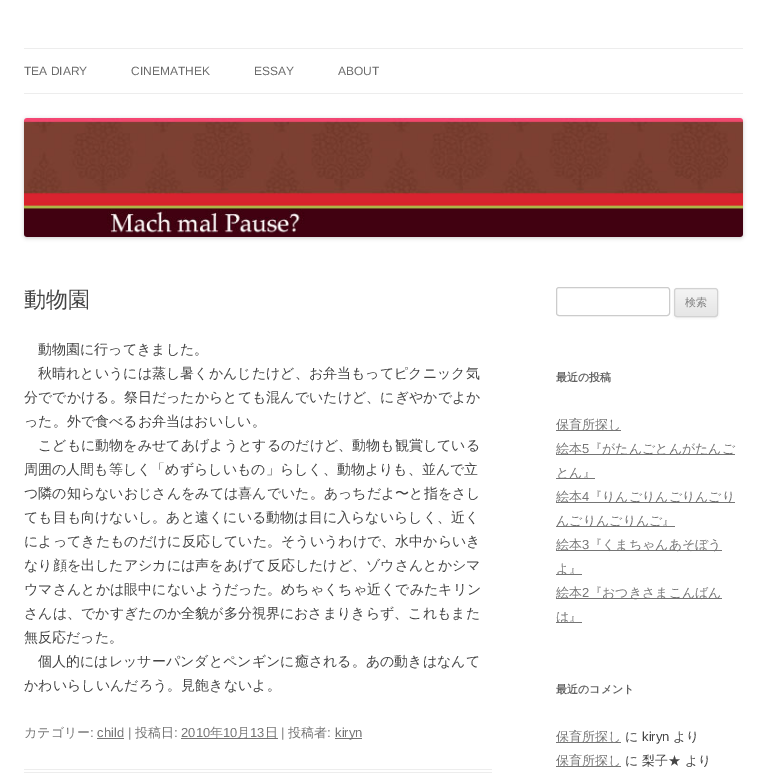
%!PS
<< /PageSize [767 778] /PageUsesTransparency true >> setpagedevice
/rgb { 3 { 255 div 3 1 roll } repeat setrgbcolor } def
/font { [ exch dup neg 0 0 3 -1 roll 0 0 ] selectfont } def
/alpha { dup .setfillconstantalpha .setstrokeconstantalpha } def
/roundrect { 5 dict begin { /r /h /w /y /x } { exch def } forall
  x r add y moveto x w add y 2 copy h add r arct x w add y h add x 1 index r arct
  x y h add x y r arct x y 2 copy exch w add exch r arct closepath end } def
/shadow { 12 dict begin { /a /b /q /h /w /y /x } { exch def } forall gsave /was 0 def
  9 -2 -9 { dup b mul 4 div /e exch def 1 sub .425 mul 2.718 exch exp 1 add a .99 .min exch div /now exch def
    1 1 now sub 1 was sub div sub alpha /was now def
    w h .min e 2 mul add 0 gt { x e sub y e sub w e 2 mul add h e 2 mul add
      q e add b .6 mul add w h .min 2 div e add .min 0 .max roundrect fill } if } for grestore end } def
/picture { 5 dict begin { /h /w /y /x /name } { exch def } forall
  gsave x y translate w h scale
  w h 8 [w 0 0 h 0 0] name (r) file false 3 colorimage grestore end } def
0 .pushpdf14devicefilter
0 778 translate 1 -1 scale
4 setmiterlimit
255 255 255 rgb
0 0 767 778 rectfill
237 237 237 rgb
24 48 719 1 rectfill
24 93 719 1 rectfill
0 0 0 rgb
24 119 719 119 3 2 0.2 shadow
(img/1.rgb) 24 118 719 119 picture
[
  [24 769 468 1 237 237 237]
  [24 772 468 1 237 237 237]
  [181 738 97 1 117 117 117]
  [335 738 27 1 117 117 117]
  [97 738 27 1 117 117 117]
] { aload pop rgb rectfill } forall
204 204 204 rgb
556.5 287.5 113 28 2.5 roundrect stroke
64 64 64 rgb
674 289 44 29 3 1 0.1 shadow
gsave
674 288 44 29 3 roundrect clip newpath
gsave 674 289 moveto 718 289 lineto 718 316 lineto 674 316 lineto closepath clip newpath
<< /ShadingType 2 /ColorSpace /DeviceRGB /Coords [696 289 696 316] /Extend [true true] /Function << /FunctionType 2 /Domain [0 1] /C0 [0.957 0.957 0.957] /C1 [0.902 0.902 0.902] /N 1 >> >> shfill grestore
grestore
210 210 210 rgb
674.5 288.5 43 28 2.5 roundrect stroke
[
  [556 430 65 1 117 117 117]
  [556 454 179 1 117 117 117]
  [556 478 39 1 117 117 117]
  [556 502 179 1 117 117 117]
  [556 526 119 1 117 117 117]
  [556 550 166 1 117 117 117]
  [556 574 26 1 117 117 117]
  [556 598 166 1 117 117 117]
  [556 622 26 1 117 117 117]
  [556 742 65 1 117 117 117]
  [556 766 65 1 117 117 117]
] { aload pop rgb rectfill } forall
/LiberationSans-Regular 12 font
106 106 106 rgb
[
  [(TEA DIARY) 24 75]
  [(CINEMATHEK) 131 75]
  [(ESSAY) 254 75]
  [(ABOUT) 338 75]
] { aload pop moveto show } forall
/WenQuanYiZenHei-Medium 22 font
68 68 68 rgb
24 307 moveto (動物園) show
/WenQuanYiZenHei-Medium 14 font
[
  [(動物園に行ってきました。) 38 354]
  [(秋晴れというには蒸し暑くかんじたけど、お弁当もってピクニック気) 38 378]
  [(分ででかける。祭日だったからとても混んでいたけど、にぎやかでよか) 24 402]
  [(った。外で食べるお弁当はおいしい。) 24 426]
  [(こどもに動物をみせてあげようとするのだけど、動物も観賞している) 38 450]
  [(周囲の人間も等しく「めずらしいもの」らしく、動物よりも、並んで立) 24 474]
  [(つ隣の知らないおじさんをみては喜んでいた。あっちだよ〜と指をさし) 24 498]
  [(ても目も向けないし。あと遠くにいる動物は目に入らないらしく、近く) 24 522]
  [(によってきたものだけに反応していた。そういうわけで、水中からいき) 24 546]
  [(なり顔を出したアシカには声をあげて反応したけど、ゾウさんとかシマ) 24 570]
  [(ウマさんとかは眼中にないようだった。めちゃくちゃ近くでみたキリン) 24 594]
  [(さんは、でかすぎたのか全貌が多分視界におさまりきらず、これもまた) 24 618]
  [(無反応だった。) 24 642]
  [(個人的にはレッサーパンダとペンギンに癒される。あの動きはなんて) 38 666]
  [(かわいらしいんだろう。見飽きないよ。) 24 690]
] { aload pop moveto show } forall
/WenQuanYiZenHei-Medium 13 font
117 117 117 rgb
24 737 moveto (カテゴリー) show
/LiberationSans-Regular 13 font
90 737 moveto (: child |) show
/WenQuanYiZenHei-Medium 13 font
135 737 moveto (投稿日) show
/LiberationSans-Regular 13 font
174 737 moveto (: 2010) show
/WenQuanYiZenHei-Medium 13 font
210 737 moveto (年) show
/LiberationSans-Regular 13 font
223 737 moveto (10) show
/WenQuanYiZenHei-Medium 13 font
237 737 moveto (月) show
/LiberationSans-Regular 13 font
250 737 moveto (13) show
/WenQuanYiZenHei-Medium 13 font
265 737 moveto (日) show
/LiberationSans-Regular 13 font
281 737 moveto (|) show
/WenQuanYiZenHei-Medium 13 font
288 737 moveto (投稿者) show
/LiberationSans-Regular 13 font
327 737 moveto (:) show
335 737 moveto (kiryn) show
/WenQuanYiZenHei-Medium 11 font
124 124 124 rgb
685 306 moveto (検索) show
/WenQuanYiZenHei-Bold 11 font
99 99 99 rgb
556 381 moveto (最近の投稿) show
/WenQuanYiZenHei-Medium 13 font
117 117 117 rgb
556 429 moveto (保育所探し) show
556 453 moveto (絵本) show
/LiberationSans-Regular 13 font
582 453 moveto (5) show
/WenQuanYiZenHei-Medium 13 font
[
  [(『がたんごとんがたんご) 589 453]
  [(とん』) 556 477]
  [(絵本) 556 501]
] { aload pop moveto show } forall
/LiberationSans-Regular 13 font
582 501 moveto (4) show
/WenQuanYiZenHei-Medium 13 font
[
  [(『りんごりんごりんごり) 589 501]
  [(んごりんごりんご』) 556 525]
  [(絵本) 556 549]
] { aload pop moveto show } forall
/LiberationSans-Regular 13 font
582 549 moveto (3) show
/WenQuanYiZenHei-Medium 13 font
[
  [(『くまちゃんあそぼう) 589 549]
  [(よ』) 556 573]
  [(絵本) 556 597]
] { aload pop moveto show } forall
/LiberationSans-Regular 13 font
582 597 moveto (2) show
/WenQuanYiZenHei-Medium 13 font
589 597 moveto (『おつきさまこんばん) show
556 621 moveto (は』) show
/WenQuanYiZenHei-Bold 11 font
99 99 99 rgb
556 693 moveto (最近のコメント) show
/WenQuanYiZenHei-Medium 13 font
117 117 117 rgb
556 741 moveto (保育所探し) show
68 68 68 rgb
625 741 moveto (に) show
/LiberationSans-Regular 13 font
642 741 moveto (kiryn) show
/WenQuanYiZenHei-Medium 13 font
673 741 moveto (より) show
117 117 117 rgb
556 765 moveto (保育所探し) show
68 68 68 rgb
625 765 moveto (に 梨子★ より) show
.poppdf14devicefilter showpage
